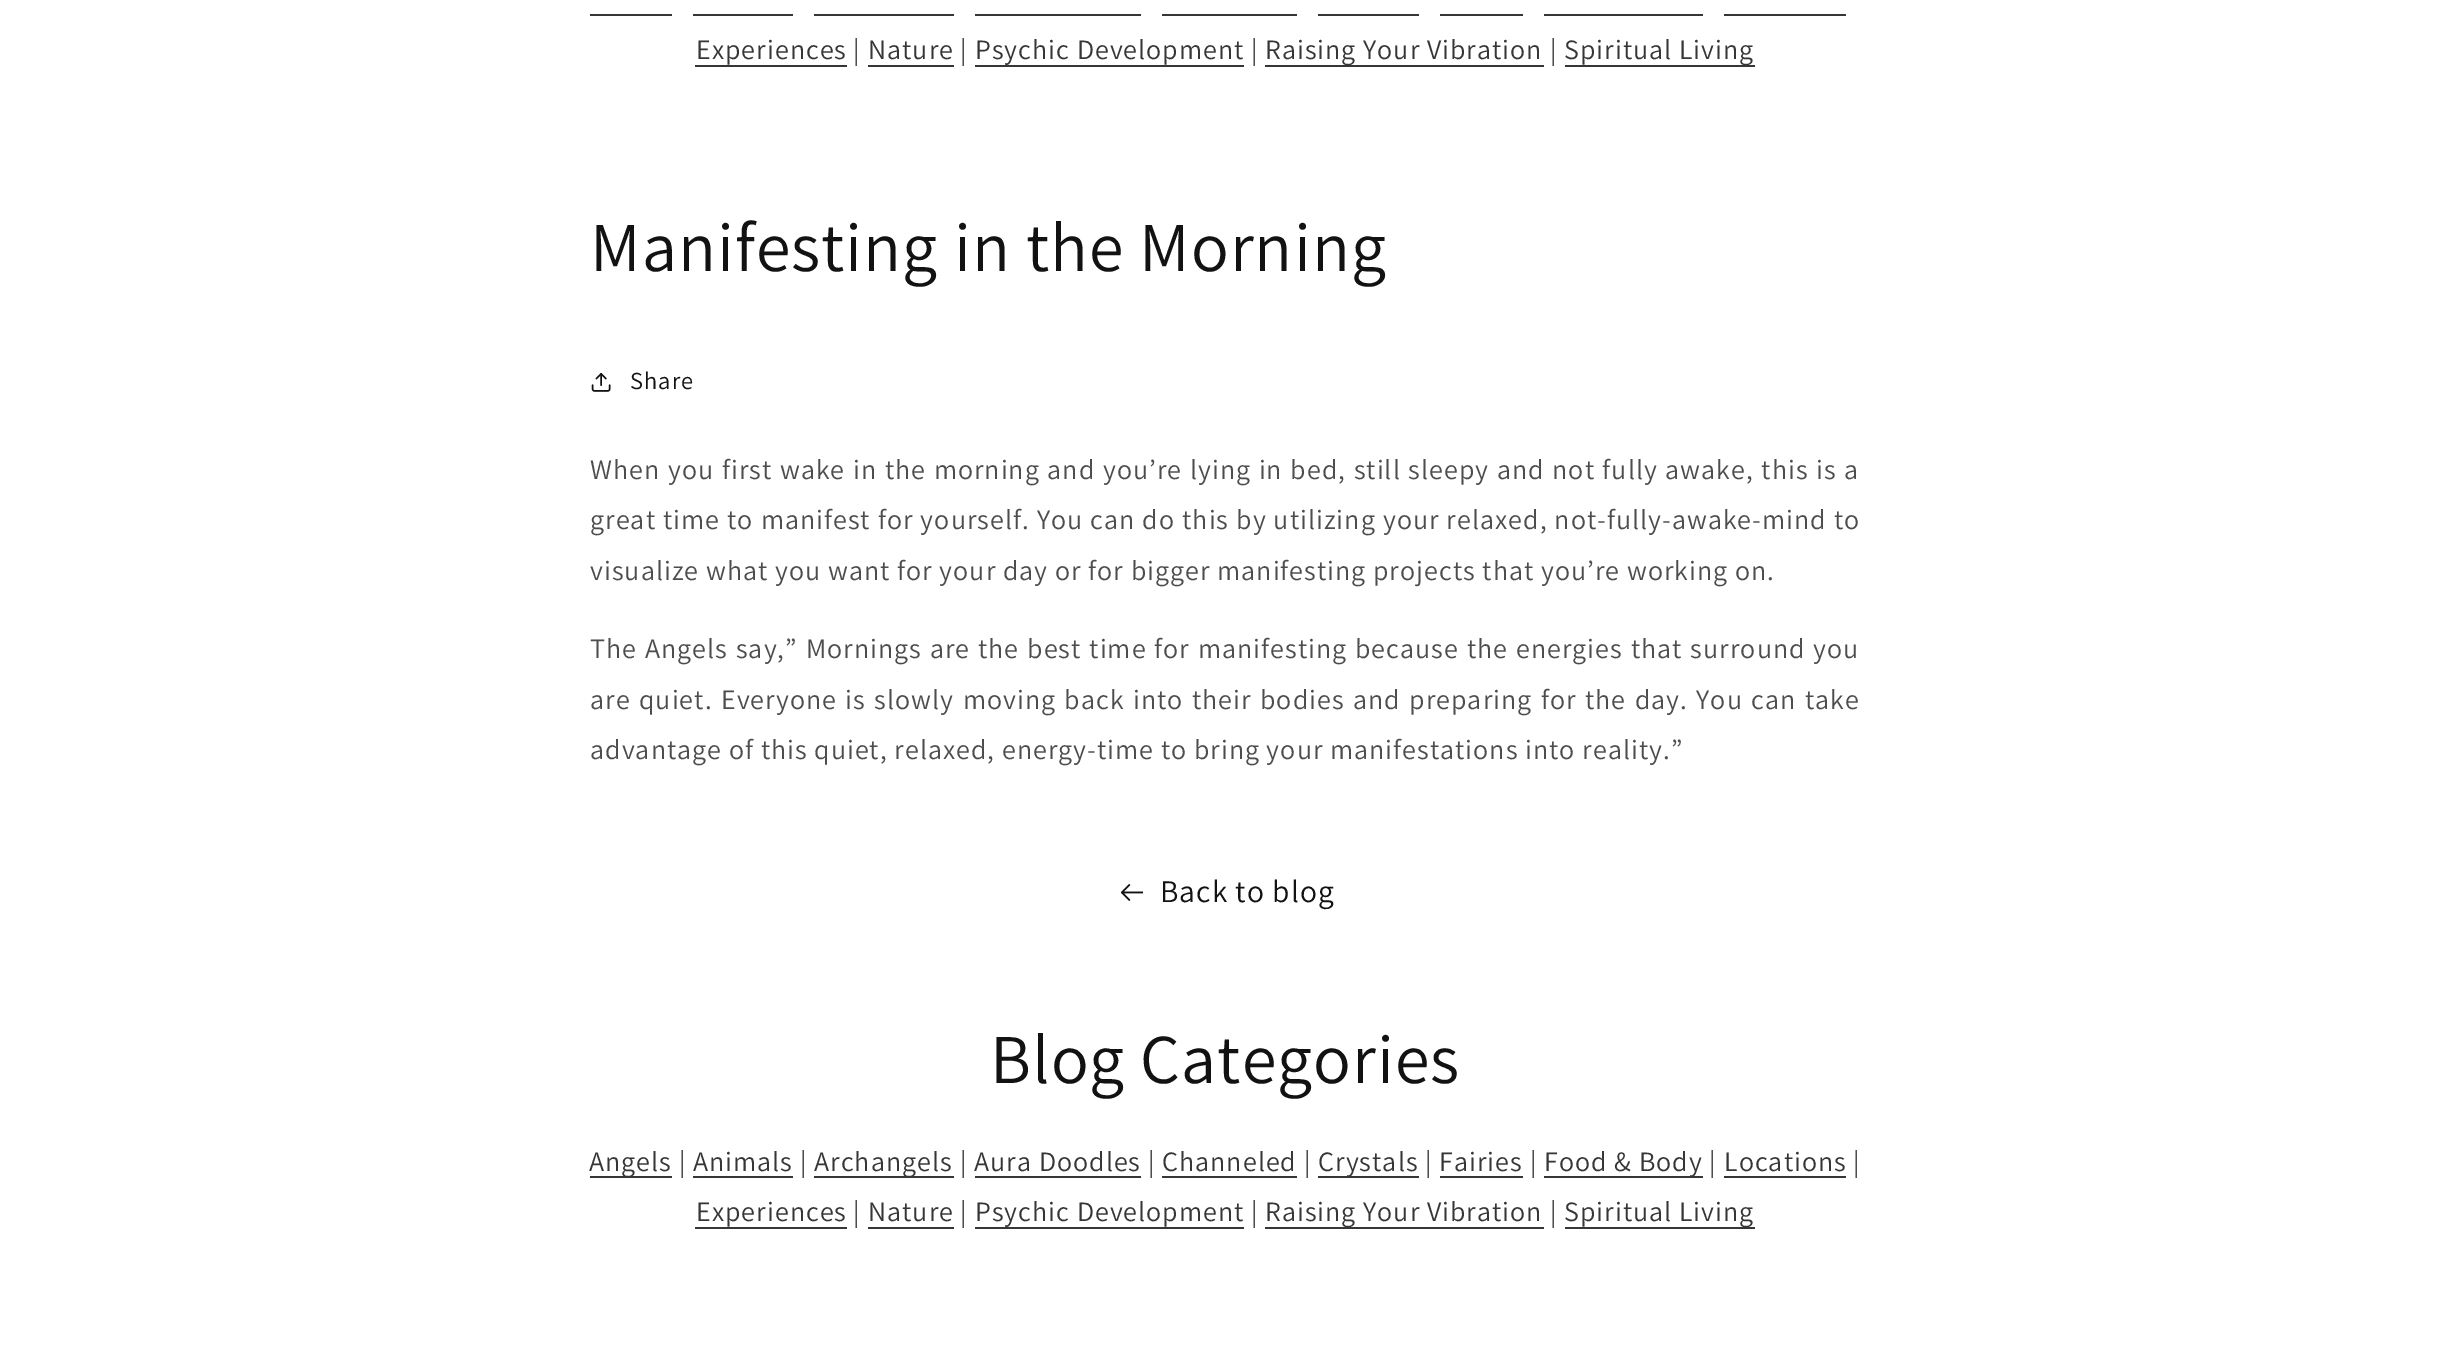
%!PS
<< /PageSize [2450 1354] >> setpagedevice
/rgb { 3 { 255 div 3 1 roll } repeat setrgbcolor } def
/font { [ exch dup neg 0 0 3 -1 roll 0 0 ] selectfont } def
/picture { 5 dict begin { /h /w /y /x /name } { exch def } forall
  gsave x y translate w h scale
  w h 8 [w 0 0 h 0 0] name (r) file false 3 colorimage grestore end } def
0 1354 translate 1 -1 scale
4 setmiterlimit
255 255 255 rgb
0 0 2450 1354 rectfill
[
  [590 14 82 2 54 54 54]
  [693 14 100 2 54 54 54]
  [814 14 140 2 54 54 54]
  [975 14 166 2 54 54 54]
  [1162 14 135 2 54 54 54]
  [1318 14 101 2 54 54 54]
  [1440 14 83 2 54 54 54]
  [1544 14 159 2 54 54 54]
  [1724 14 122 2 54 54 54]
  [695 65 152 2 54 54 54]
  [868 65 86 2 54 54 54]
  [975 65 269 2 54 54 54]
  [1265 65 279 2 54 54 54]
  [1565 65 190 2 54 54 54]
] { aload pop rgb rectfill } forall
(img/1.rgb) 591 373 20 19 picture
(img/2.rgb) 1120 884 23 17 picture
[
  [590 1176 82 2 54 54 54]
  [693 1176 100 2 54 54 54]
  [814 1176 140 2 54 54 54]
  [975 1176 166 2 54 54 54]
  [1162 1176 135 2 54 54 54]
  [1318 1176 101 2 54 54 54]
  [1440 1176 83 2 54 54 54]
  [1544 1176 159 2 54 54 54]
  [1724 1176 122 2 54 54 54]
  [695 1227 152 2 54 54 54]
  [868 1227 86 2 54 54 54]
  [975 1227 269 2 54 54 54]
  [1265 1227 279 2 54 54 54]
  [1565 1227 190 2 54 54 54]
] { aload pop rgb rectfill } forall
/Assistant-Regular 28 font
696 59 moveto 1.05 0 (Experiences) ashow
77 77 77 rgb
853 59 moveto 1.05 0 (|) ashow
54 54 54 rgb
868 59 moveto 1.05 0 (Nature) ashow
77 77 77 rgb
960 59 moveto 1.05 0 (|) ashow
54 54 54 rgb
975 59 moveto 1.05 0 (Psychic Development) ashow
77 77 77 rgb
1251 59 moveto 1.05 0 (|) ashow
54 54 54 rgb
1265 59 moveto 1.05 0 (Raising Your Vibration) ashow
77 77 77 rgb
1550 59 moveto 1.05 0 (|) ashow
54 54 54 rgb
1564 59 moveto 1.05 0 (Spiritual Living) ashow
/Assistant-Regular 70 font
18 18 18 rgb
590 271 moveto 1.05 0 (Manifesting in the Morning) ashow
/Assistant-Regular 24.5 font
630 389 moveto 1.05 0 (Share) ashow
/Assistant-Regular 28 font
77 77 77 rgb
590 479 moveto 1 0 32 1.05 0 (When you first wake in the morning and you’re lying in bed, still sleepy and not fully awake, this is a) awidthshow
590 529 moveto 0.4 0 32 1.05 0 (great time to manifest for yourself. You can do this by utilizing your relaxed, not-fully-awake-mind to) awidthshow
590 580 moveto 1.05 0 (visualize what you want for your day or for bigger manifesting projects that you’re working on.) ashow
590 658 moveto 1.25 0 32 1.05 0 (The Angels say,” Mornings are the best time for manifesting because the energies that surround you) awidthshow
590 709 moveto 1.8 0 32 1.05 0 (are quiet. Everyone is slowly moving back into their bodies and preparing for the day. You can take) awidthshow
590 759 moveto 1.05 0 (advantage of this quiet, relaxed, energy-time to bring your manifestations into reality.”) ashow
/Assistant-Regular 31.5 font
18 18 18 rgb
1160 902 moveto 1.05 0 (Back to blog) ashow
/Assistant-Regular 70 font
990 1083 moveto 1.05 0 (Blog Categories) ashow
/Assistant-Regular 28 font
54 54 54 rgb
589 1171 moveto 1.05 0 (Angels) ashow
77 77 77 rgb
679 1171 moveto 1.05 0 (|) ashow
54 54 54 rgb
693 1171 moveto 1.05 0 (Animals) ashow
77 77 77 rgb
800 1171 moveto 1.05 0 (|) ashow
54 54 54 rgb
814 1171 moveto 1.05 0 (Archangels) ashow
77 77 77 rgb
960 1171 moveto 1.05 0 (|) ashow
54 54 54 rgb
974 1171 moveto 1.05 0 (Aura Doodles) ashow
77 77 77 rgb
1148 1171 moveto 1.05 0 (|) ashow
54 54 54 rgb
1162 1171 moveto 1.05 0 (Channeled) ashow
77 77 77 rgb
1304 1171 moveto 1.05 0 (|) ashow
54 54 54 rgb
1318 1171 moveto 1.05 0 (Crystals) ashow
77 77 77 rgb
1425 1171 moveto 1.05 0 (|) ashow
54 54 54 rgb
1439 1171 moveto 1.05 0 (Fairies) ashow
77 77 77 rgb
1530 1171 moveto 1.05 0 (|) ashow
54 54 54 rgb
1544 1171 moveto 1.05 0 (Food & Body) ashow
77 77 77 rgb
1709 1171 moveto 1.05 0 (|) ashow
54 54 54 rgb
1724 1171 moveto 1.05 0 (Locations) ashow
77 77 77 rgb
1853 1171 moveto 1.05 0 (|) ashow
54 54 54 rgb
696 1221 moveto 1.05 0 (Experiences) ashow
77 77 77 rgb
853 1221 moveto 1.05 0 (|) ashow
54 54 54 rgb
868 1221 moveto 1.05 0 (Nature) ashow
77 77 77 rgb
960 1221 moveto 1.05 0 (|) ashow
54 54 54 rgb
975 1221 moveto 1.05 0 (Psychic Development) ashow
77 77 77 rgb
1251 1221 moveto 1.05 0 (|) ashow
54 54 54 rgb
1265 1221 moveto 1.05 0 (Raising Your Vibration) ashow
77 77 77 rgb
1550 1221 moveto 1.05 0 (|) ashow
54 54 54 rgb
1564 1221 moveto 1.05 0 (Spiritual Living) ashow
showpage
